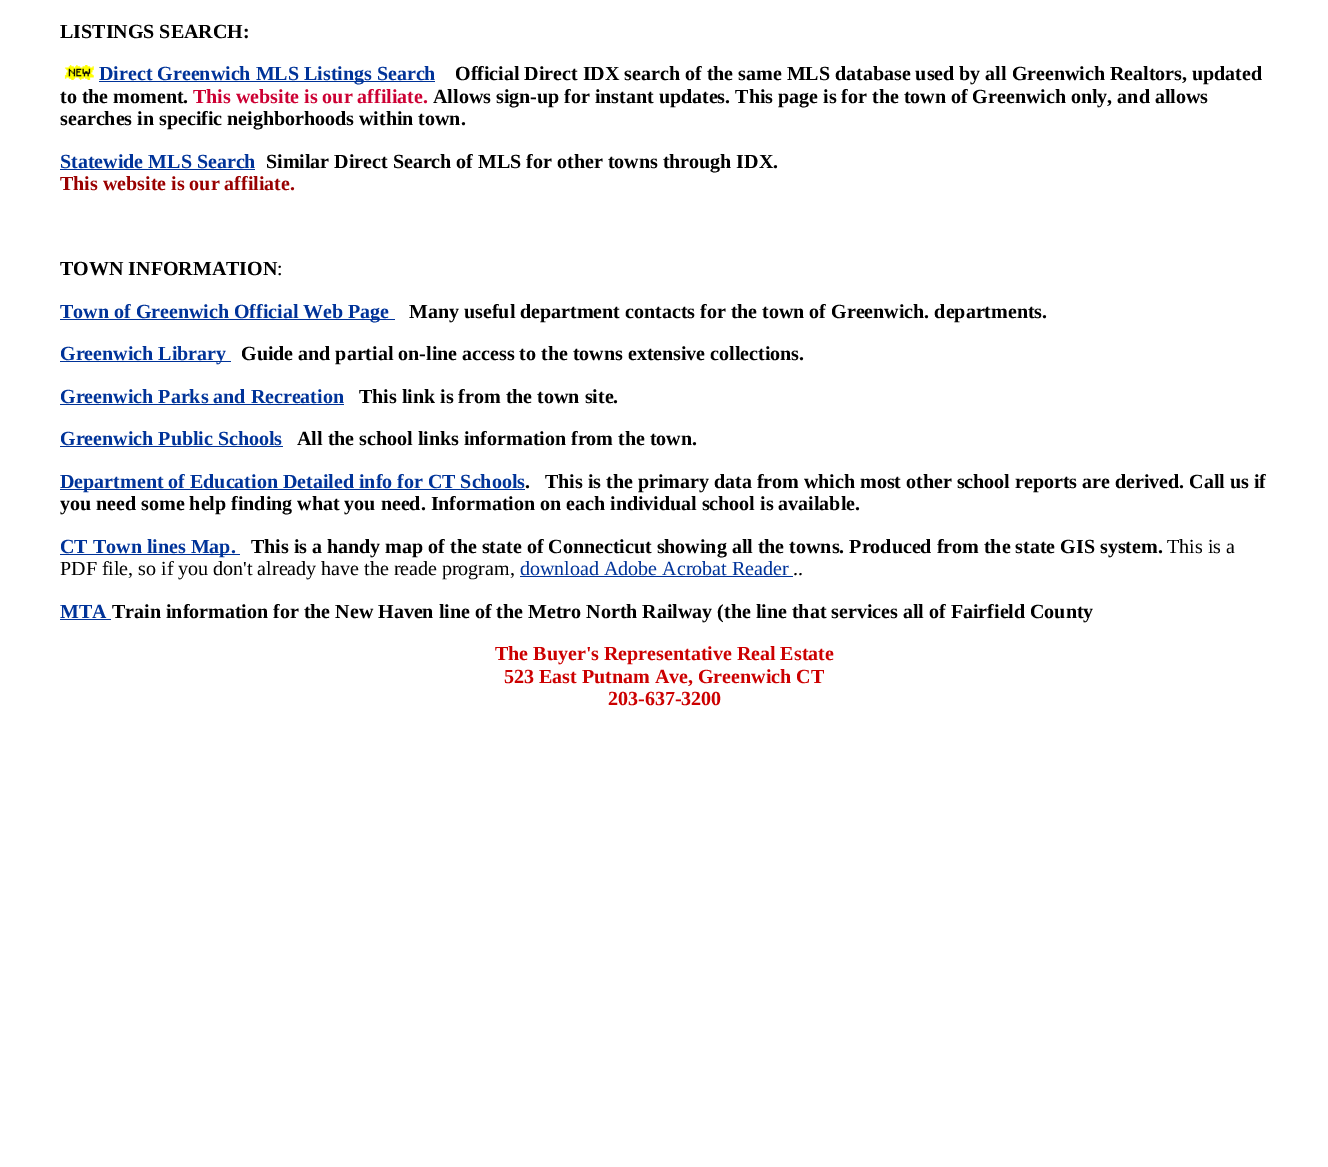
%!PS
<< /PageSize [1328 1167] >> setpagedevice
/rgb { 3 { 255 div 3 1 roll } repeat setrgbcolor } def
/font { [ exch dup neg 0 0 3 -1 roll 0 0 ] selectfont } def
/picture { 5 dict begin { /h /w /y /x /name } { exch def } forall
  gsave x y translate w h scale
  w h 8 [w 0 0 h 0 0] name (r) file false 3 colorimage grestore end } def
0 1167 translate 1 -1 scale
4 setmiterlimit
255 255 255 rgb
0 0 1328 1167 rectfill
(img/1.rgb) 64 65 30 15 picture
[
  [99 81 336 1 0 51 153]
  [60 169 195 1 0 51 153]
  [60 319 335 1 0 51 153]
  [60 361 171 1 0 51 153]
  [60 404 284 1 0 51 153]
  [60 446 223 1 0 51 153]
  [60 489 465 1 0 51 153]
  [60 554 180 1 0 51 153]
  [520 576 273 1 0 51 153]
  [60 619 51 1 0 51 153]
] { aload pop rgb rectfill } forall
/LiberationSerif-Bold 20 font
0 0 0 rgb
60 38 moveto (LISTINGS SEARCH:) show
0 51 153 rgb
99 80 moveto (Direct Greenwich MLS Listings Search) show
0 0 0 rgb
455 80 moveto (Official Direct IDX search of the same MLS database used by all Greenwich Realtors, updated) show
60 103 moveto (to the moment.) show
204 0 51 rgb
193 103 moveto (This website is our affiliate.) show
0 0 0 rgb
433 103 moveto (Allows sign-up for instant updates. This page is for the town of Greenwich only, and allows) show
60 125 moveto (searches in specific neighborhoods within town.) show
0 51 153 rgb
60 168 moveto (Statewide MLS Search) show
0 0 0 rgb
266 168 moveto (Similar Direct Search of MLS for other towns through IDX.) show
153 0 0 rgb
60 190 moveto (This website is our affiliate.) show
0 0 0 rgb
60 275 moveto (TOWN INFORMATION) show
/LiberationSerif-Regular 20 font
277 275 moveto (:) show
/LiberationSerif-Bold 20 font
0 51 153 rgb
60 318 moveto (Town of Greenwich Official Web Page) show
0 0 0 rgb
409 318 moveto (Many useful department contacts for the town of Greenwich. departments.) show
0 51 153 rgb
60 360 moveto (Greenwich Library) show
0 0 0 rgb
241 360 moveto (Guide and partial on-line access to the towns extensive collections.) show
0 51 153 rgb
60 403 moveto (Greenwich Parks and Recreation) show
0 0 0 rgb
359 403 moveto (This link is from the town site.) show
0 51 153 rgb
60 445 moveto (Greenwich Public Schools) show
0 0 0 rgb
297 445 moveto (All the school links information from the town.) show
0 51 153 rgb
60 488 moveto (Department of Education Detailed info for CT Schools) show
0 0 0 rgb
525 488 moveto (.   This is the primary data from which most other school reports are derived. Call us if) show
60 510 moveto (you need some help finding what you need. Information on each individual school is available.) show
0 51 153 rgb
60 553 moveto (CT Town lines Map.) show
0 0 0 rgb
251 553 moveto (This is a handy map of the state of Connecticut showing all the towns. Produced from the state GIS system.) show
/LiberationSerif-Regular 20 font
1167 553 moveto (This is a) show
60 575 moveto (PDF file, so if you don't already have the reade program,) show
0 51 153 rgb
520 575 moveto (download Adobe Acrobat Reader) show
0 0 0 rgb
793 575 moveto (..) show
/LiberationSerif-Bold 20 font
0 51 153 rgb
60 618 moveto (MTA) show
0 0 0 rgb
112 618 moveto (Train information for the New Haven line of the Metro North Railway \(the line that services all of Fairfield County) show
204 0 0 rgb
[
  [(The Buyer's Representative Real Estate) 495 660]
  [(523 East Putnam Ave, Greenwich CT) 504 683]
  [(203-637-3200) 608 705]
] { aload pop moveto show } forall
showpage
